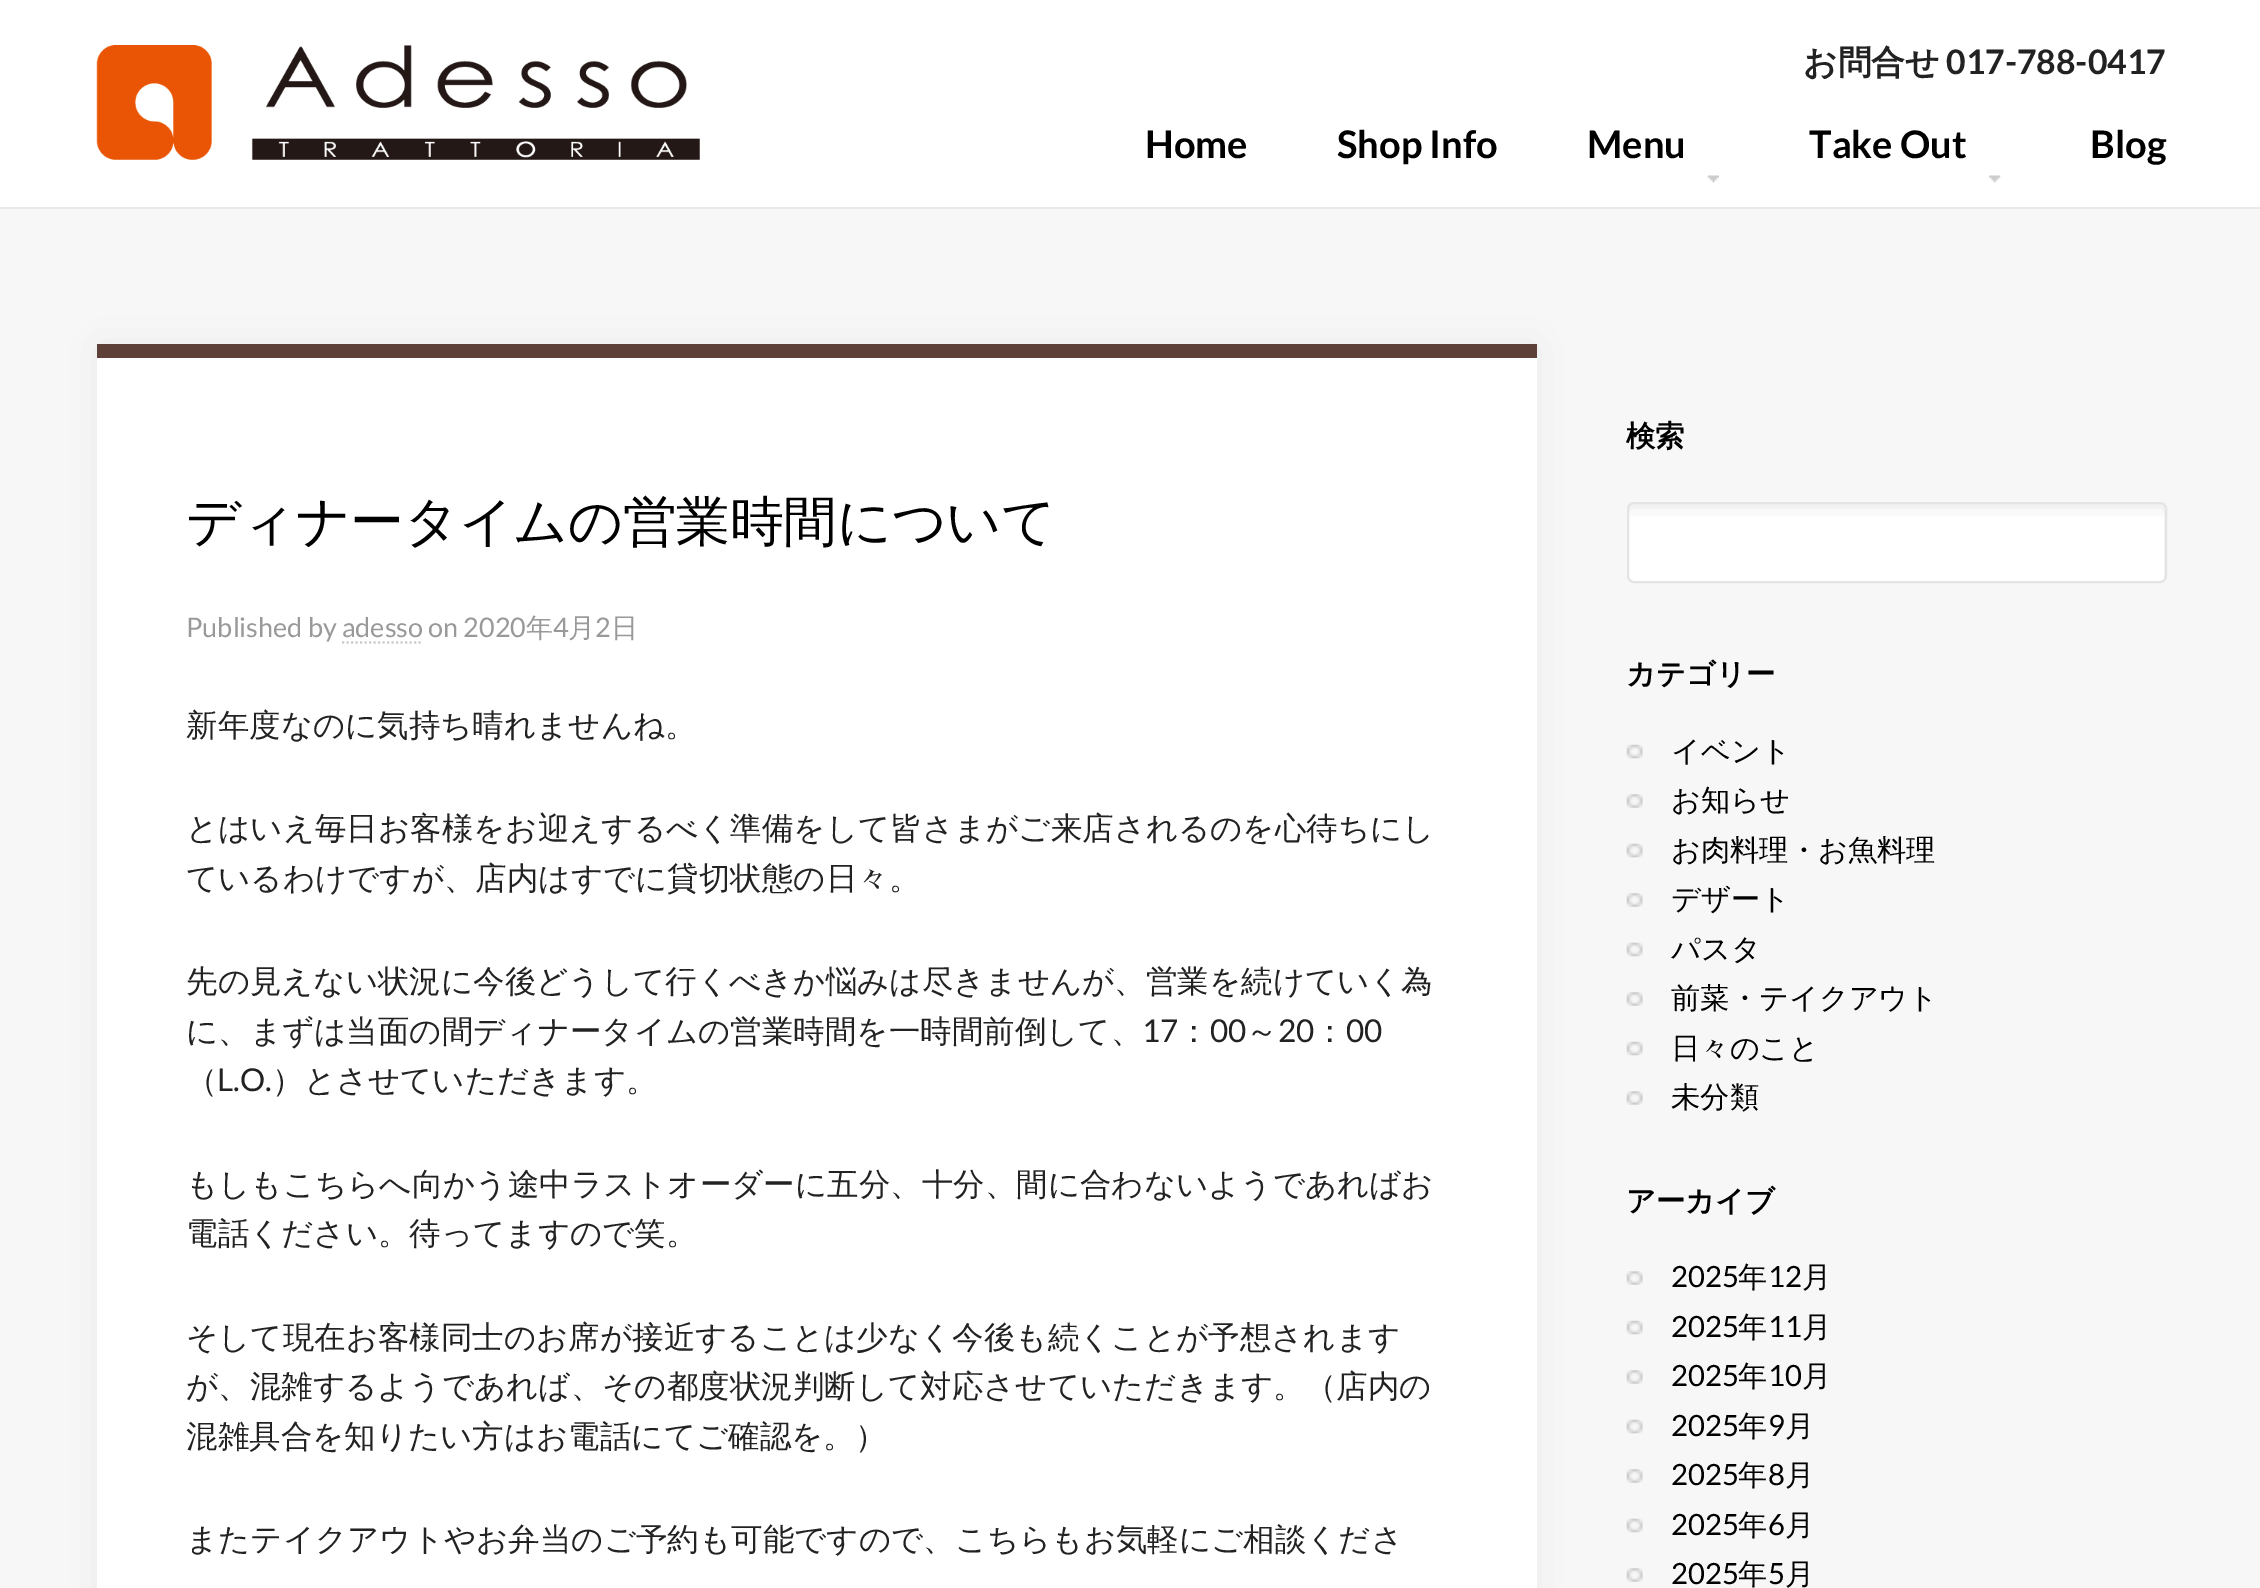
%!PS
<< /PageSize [2260 1588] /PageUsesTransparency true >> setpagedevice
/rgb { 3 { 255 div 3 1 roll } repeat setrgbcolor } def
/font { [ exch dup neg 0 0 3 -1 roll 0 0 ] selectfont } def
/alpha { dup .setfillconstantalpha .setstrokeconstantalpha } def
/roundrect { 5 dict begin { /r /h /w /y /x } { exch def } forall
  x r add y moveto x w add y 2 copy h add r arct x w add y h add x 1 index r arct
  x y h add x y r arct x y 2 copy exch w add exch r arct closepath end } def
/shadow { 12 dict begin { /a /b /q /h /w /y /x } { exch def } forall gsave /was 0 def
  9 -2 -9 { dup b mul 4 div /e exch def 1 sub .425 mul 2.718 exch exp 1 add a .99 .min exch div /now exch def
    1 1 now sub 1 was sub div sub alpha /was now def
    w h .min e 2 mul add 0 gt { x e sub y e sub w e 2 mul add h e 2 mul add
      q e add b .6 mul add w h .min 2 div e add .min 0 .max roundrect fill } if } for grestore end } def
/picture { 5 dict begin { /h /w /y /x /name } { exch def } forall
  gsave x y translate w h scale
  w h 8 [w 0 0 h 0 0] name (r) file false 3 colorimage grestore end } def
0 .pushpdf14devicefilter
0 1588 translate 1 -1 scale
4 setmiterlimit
247 247 247 rgb
0 0 2260 1588 rectfill
255 255 255 rgb
0 0 2260 207 rectfill
233 233 233 rgb
0 207 2260 2 rectfill
(img/1.rgb) 96 45 604 115 picture
(img/2.rgb) 1707 175 12 8 picture
(img/3.rgb) 1989 175 12 8 picture
235 235 235 rgb
97 344 1440 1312 0 22.5 1 shadow
255 255 255 rgb
97 358 1440 1230 rectfill
93 64 55 rgb
97 344 1440 14 rectfill
255 255 255 rgb
1629 504 536 77 5 roundrect fill
(img/4.rgb) 1629 504 535 12 picture
242 242 242 rgb
1634 508 moveto 2160 508 lineto 2162 508 2164 511 2164 513 curveto 2164 579 lineto 2165 578 2165 577 2165 576 curveto 2165 509 lineto 2165 506 2163 504 2160 504 curveto 1634 504 lineto 1631 504 1629 506 1629 509 curveto 1629 513 lineto 1629 511 1631 508 1634 508 curveto closepath fill
228 228 228 rgb
2 setlinewidth
1628 503 538 79 6 roundrect stroke
(img/5.rgb) 1626 744 17 15 picture
(img/6.rgb) 1626 794 17 14 picture
(img/5.rgb) 1626 843 17 15 picture
(img/6.rgb) 1626 893 17 14 picture
(img/5.rgb) 1626 942 17 15 picture
(img/6.rgb) 1626 992 17 14 picture
(img/5.rgb) 1626 1041 17 15 picture
(img/6.rgb) 1626 1091 17 14 picture
(img/6.rgb) 1626 1271 17 14 picture
(img/5.rgb) 1626 1320 17 15 picture
(img/6.rgb) 1626 1370 17 14 picture
(img/5.rgb) 1626 1419 17 15 picture
(img/6.rgb) 1626 1469 17 14 picture
(img/5.rgb) 1626 1518 17 15 picture
(img/6.rgb) 1626 1568 17 14 picture
/WenQuanYiZenHei-Bold 33.75 font
34 34 34 rgb
1803 74 moveto (お問合せ) show
/Lato-Bold 33.75 font
1946 74 moveto (017-788-0417) show
/Lato-Bold 38 font
0 0 0 rgb
[
  [(Home) 1145 158]
  [(Shop Info) 1337 158]
  [(Menu) 1587 158]
  [(Take Out) 1809 158]
  [(Blog) 2090 158]
] { aload pop moveto show } forall
/WenQuanYiZenHei-Medium 54 font
186 540 moveto -0.5 0 (ディナータイムの営業時間について) ashow
/Lato-Regular 27 font
153 153 153 rgb
186 637 moveto (Published by adesso on 2020) show
/WenQuanYiZenHei-Medium 27 font
526 637 moveto (年) show
/Lato-Regular 27 font
553 637 moveto (4) show
/WenQuanYiZenHei-Medium 27 font
568 637 moveto (月) show
/Lato-Regular 27 font
595 637 moveto (2) show
/WenQuanYiZenHei-Medium 27 font
611 637 moveto (日) show
204 204 204 rgb
2.2 setlinewidth
[2.25 2.25] 0 setdash
342 642.5 moveto 423 642.5 lineto stroke
/WenQuanYiZenHei-Medium 31.5 font
34 34 34 rgb
[
  [(新年度なのに気持ち晴れませんね。) 186 736]
  [(とはいえ毎日お客様をお迎えするべく準備をして皆さまがご来店されるのを心待ちにし) 186 839]
  [(ているわけですが、店内はすでに貸切状態の日々。) 186 889]
  [(先の見えない状況に今後どうして行くべきか悩みは尽きませんが、営業を続けていく為) 186 992]
  [(に、まずは当面の間ディナータイムの営業時間を一時間前倒して、) 186 1042]
] { aload pop moveto show } forall
/Lato-Regular 31.5 font
1142 1042 moveto (17) show
/WenQuanYiZenHei-Medium 31.5 font
1178 1042 moveto (：) show
/Lato-Regular 31.5 font
1210 1042 moveto (00) show
/WenQuanYiZenHei-Medium 31.5 font
1246 1042 moveto (～) show
/Lato-Regular 31.5 font
1278 1042 moveto (20) show
/WenQuanYiZenHei-Medium 31.5 font
1314 1042 moveto (：) show
/Lato-Regular 31.5 font
1346 1042 moveto (00) show
/WenQuanYiZenHei-Medium 31.5 font
186 1091 moveto (（) show
/Lato-Regular 31.5 font
217 1091 moveto (L.O.) show
/WenQuanYiZenHei-Medium 31.5 font
[
  [(）とさせていただきます。) 272 1091]
  [(もしもこちらへ向かう途中ラストオーダーに五分、十分、間に合わないようであればお) 186 1195]
  [(電話ください。待ってますので笑。) 186 1244]
  [(そして現在お客様同士のお席が接近することは少なく今後も続くことが予想されます) 186 1348]
  [(が、混雑するようであれば、その都度状況判断して対応させていただきます。（店内の) 186 1397]
  [(混雑具合を知りたい方はお電話にてご確認を。）) 186 1447]
  [(またテイクアウトやお弁当のご予約も可能ですので、こちらもお気軽にご相談くださ) 186 1550]
] { aload pop moveto show } forall
/WenQuanYiZenHei-Bold 29.25 font
0 0 0 rgb
1626 446 moveto (検索) show
1626 684 moveto (カテゴリー) show
/WenQuanYiZenHei-Medium 29.25 font
[
  [(イベント) 1671 761]
  [(お知らせ) 1671 810]
  [(お肉料理・お魚料理) 1671 860]
  [(デザート) 1671 909]
  [(パスタ) 1671 959]
  [(前菜・テイクアウト) 1671 1008]
  [(日々のこと) 1671 1058]
  [(未分類) 1671 1107]
] { aload pop moveto show } forall
/WenQuanYiZenHei-Bold 29.25 font
1626 1211 moveto (アーカイブ) show
/Lato-Regular 29.25 font
1671 1287 moveto (2025) show
/WenQuanYiZenHei-Medium 29.25 font
1738 1287 moveto (年) show
/Lato-Regular 29.25 font
1768 1287 moveto (12) show
/WenQuanYiZenHei-Medium 29.25 font
1802 1287 moveto (月) show
/Lato-Regular 29.25 font
1671 1337 moveto (2025) show
/WenQuanYiZenHei-Medium 29.25 font
1738 1337 moveto (年) show
/Lato-Regular 29.25 font
1768 1337 moveto (11) show
/WenQuanYiZenHei-Medium 29.25 font
1802 1337 moveto (月) show
/Lato-Regular 29.25 font
1671 1386 moveto (2025) show
/WenQuanYiZenHei-Medium 29.25 font
1738 1386 moveto (年) show
/Lato-Regular 29.25 font
1768 1386 moveto (10) show
/WenQuanYiZenHei-Medium 29.25 font
1802 1386 moveto (月) show
/Lato-Regular 29.25 font
1671 1436 moveto (2025) show
/WenQuanYiZenHei-Medium 29.25 font
1738 1436 moveto (年) show
/Lato-Regular 29.25 font
1768 1436 moveto (9) show
/WenQuanYiZenHei-Medium 29.25 font
1785 1436 moveto (月) show
/Lato-Regular 29.25 font
1671 1485 moveto (2025) show
/WenQuanYiZenHei-Medium 29.25 font
1738 1485 moveto (年) show
/Lato-Regular 29.25 font
1768 1485 moveto (8) show
/WenQuanYiZenHei-Medium 29.25 font
1785 1485 moveto (月) show
/Lato-Regular 29.25 font
1671 1535 moveto (2025) show
/WenQuanYiZenHei-Medium 29.25 font
1738 1535 moveto (年) show
/Lato-Regular 29.25 font
1768 1535 moveto (6) show
/WenQuanYiZenHei-Medium 29.25 font
1785 1535 moveto (月) show
/Lato-Regular 29.25 font
1671 1584 moveto (2025) show
/WenQuanYiZenHei-Medium 29.25 font
1738 1584 moveto (年) show
/Lato-Regular 29.25 font
1768 1584 moveto (5) show
/WenQuanYiZenHei-Medium 29.25 font
1785 1584 moveto (月) show
.poppdf14devicefilter showpage
